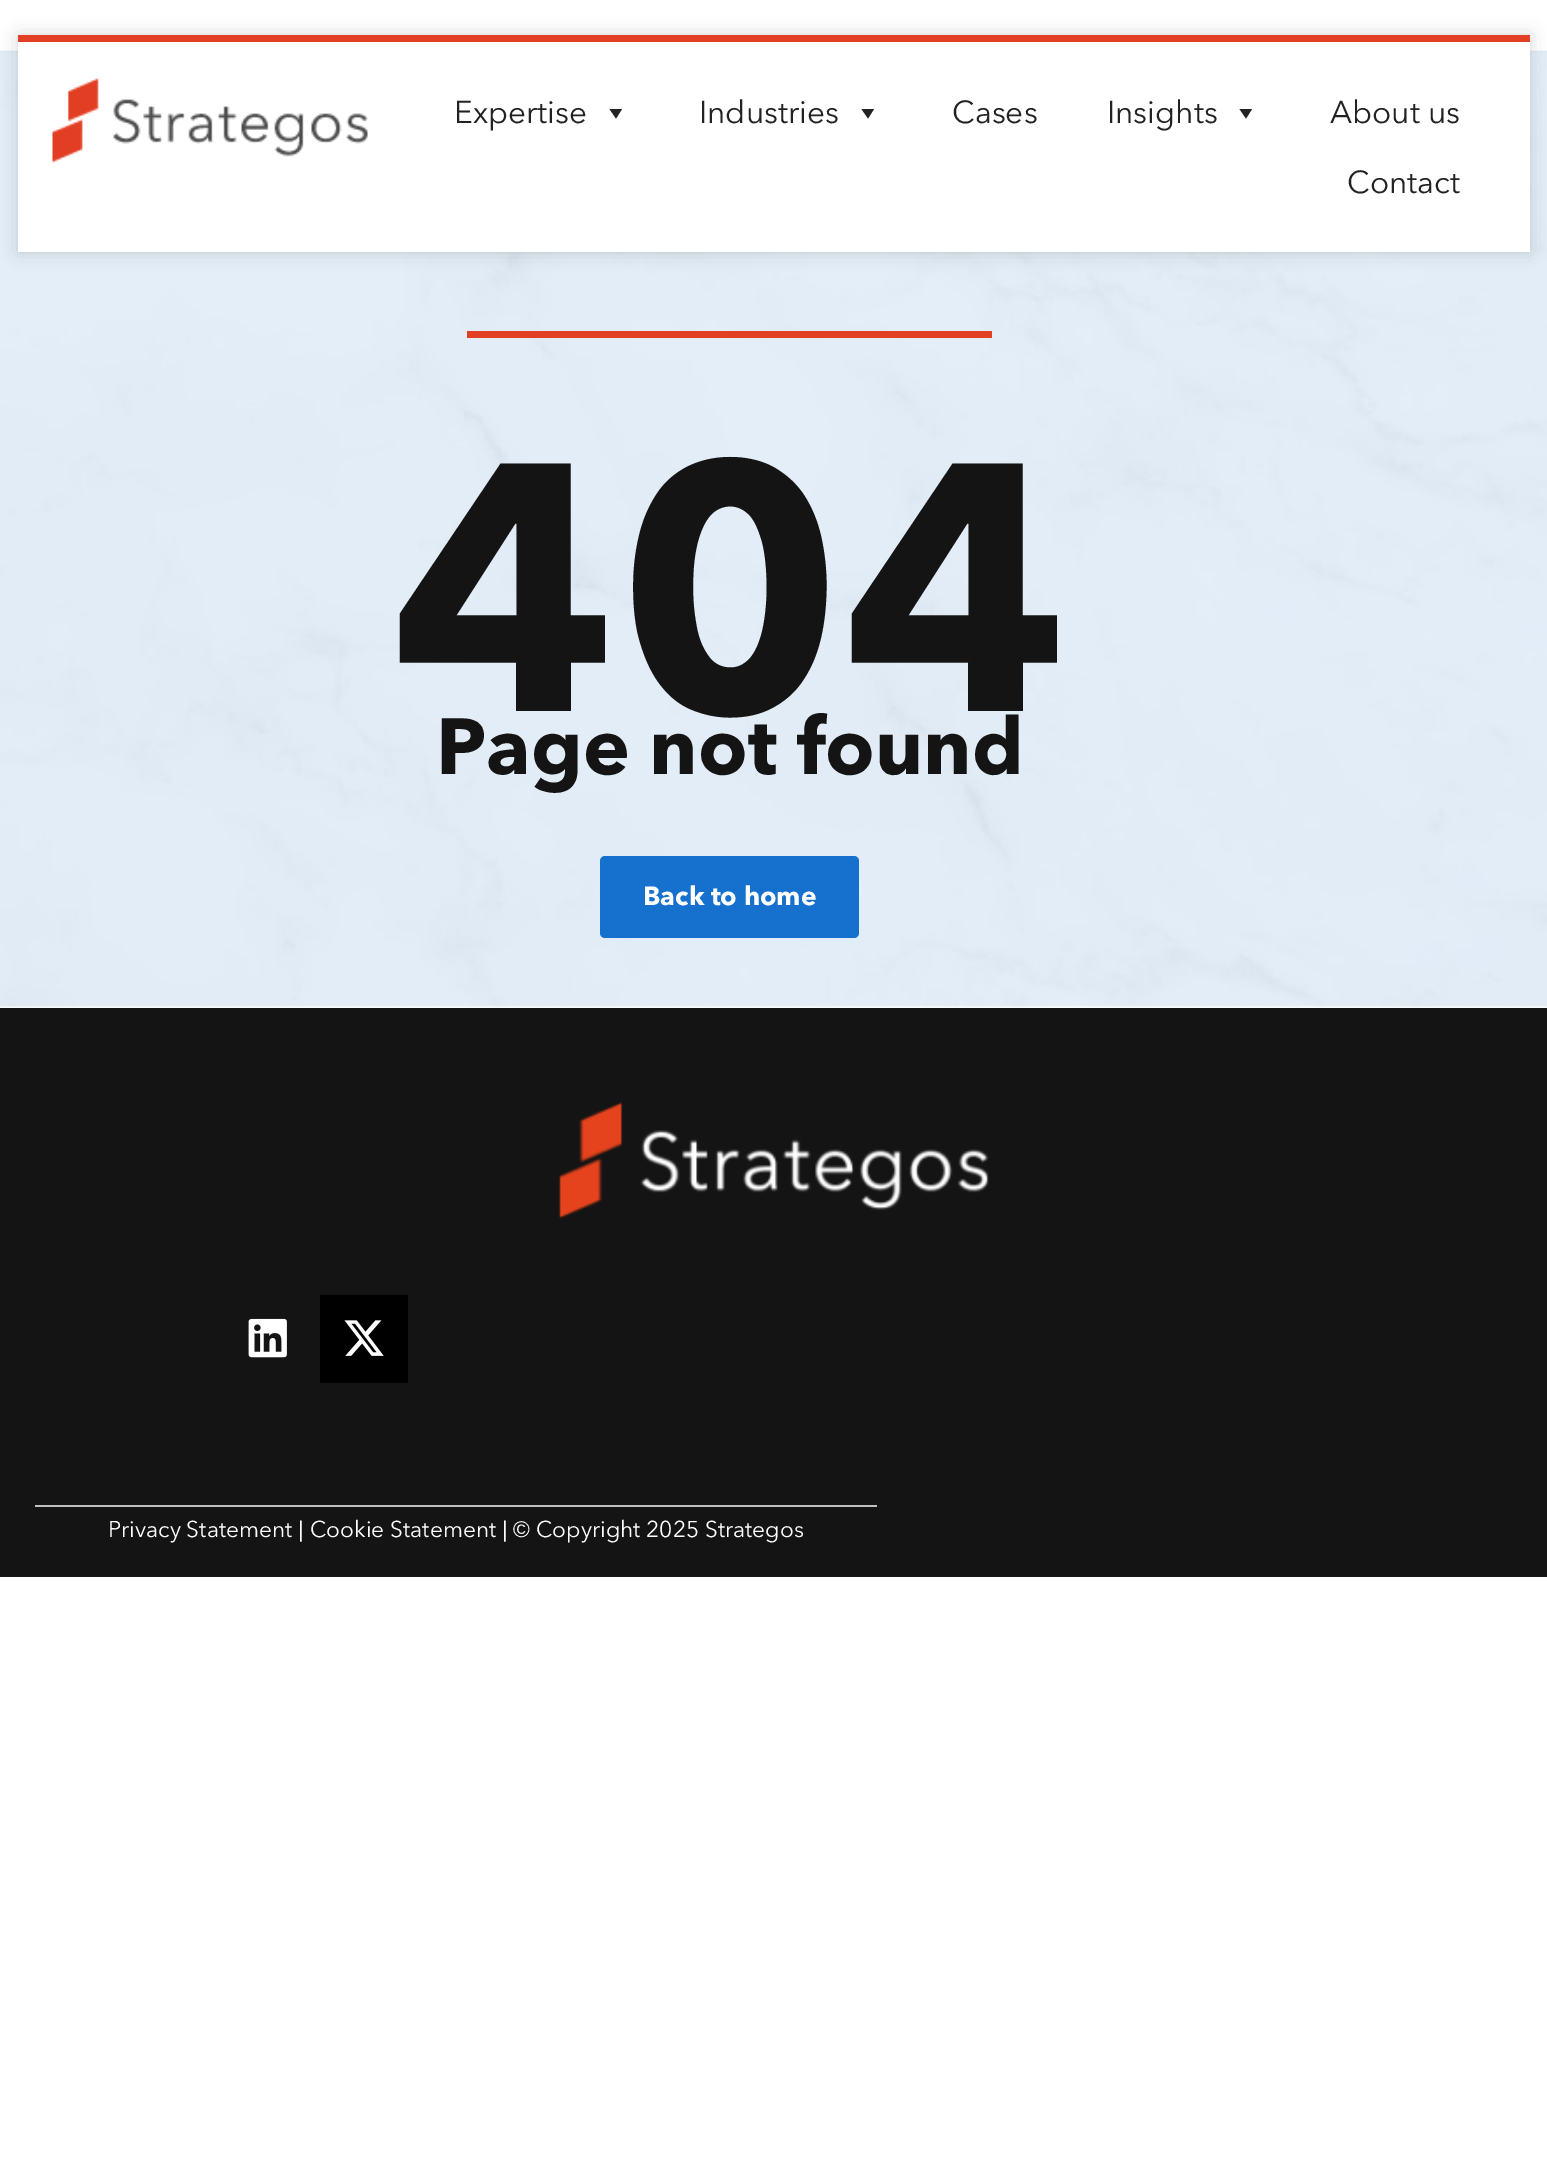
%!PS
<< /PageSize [1547 2180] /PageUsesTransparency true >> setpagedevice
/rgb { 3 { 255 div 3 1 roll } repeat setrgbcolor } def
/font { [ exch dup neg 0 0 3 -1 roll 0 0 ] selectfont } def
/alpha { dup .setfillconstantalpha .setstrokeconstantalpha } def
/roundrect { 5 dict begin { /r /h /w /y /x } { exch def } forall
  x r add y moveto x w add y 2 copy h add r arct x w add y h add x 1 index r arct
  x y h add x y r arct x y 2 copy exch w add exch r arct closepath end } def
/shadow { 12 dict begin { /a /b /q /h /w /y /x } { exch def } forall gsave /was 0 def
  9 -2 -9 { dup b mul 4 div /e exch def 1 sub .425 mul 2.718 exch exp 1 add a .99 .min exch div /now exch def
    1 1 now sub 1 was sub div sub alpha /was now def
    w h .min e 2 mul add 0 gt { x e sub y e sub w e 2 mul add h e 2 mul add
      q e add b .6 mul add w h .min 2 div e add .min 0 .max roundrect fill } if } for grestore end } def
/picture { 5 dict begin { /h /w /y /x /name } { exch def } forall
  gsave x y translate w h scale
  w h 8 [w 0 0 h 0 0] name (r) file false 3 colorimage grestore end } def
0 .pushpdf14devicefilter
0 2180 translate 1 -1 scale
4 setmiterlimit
255 255 255 rgb
0 0 1547 2180 rectfill
(img/2.rgb) 0 50 1547 958 picture
0 0 0 rgb
18 35 1512 217 0 9 0.16 shadow
255 255 255 rgb
18 42 1512 210 rectfill
226 63 36 rgb
18 35 1512 7 rectfill
(img/1.rgb) 52 78 316 85 picture
34 34 34 rgb
622 109 moveto 616 118.5 lineto 609.5 109 lineto closepath fill
874 109 moveto 868 118.5 lineto 861.5 109 lineto closepath fill
1252 109 moveto 1246 118.5 lineto 1239.5 109 lineto closepath fill
226 63 36 rgb
467 331 525 7 rectfill
21 113 205 rgb
600 856 259 82 5 roundrect fill
20 20 20 rgb
0 1008 1547 569 rectfill
(img/3.rgb) 558 1102 431 117 picture
(img/4.rgb) 248 1318 39 40 picture
0 0 0 rgb
320 1295 88 88 rectfill
(img/5.rgb) 344 1320 40 36 picture
192 192 192 rgb
35 1505 842 2 rectfill
/AvenirNext-Regular 31.5 font
34 34 34 rgb
[
  [(Expertise) 454 123]
  [(Industries) 699 123]
  [(Cases) 952 123]
  [(Insights) 1107 123]
  [(About us) 1330 123]
  [(Contact) 1347 193]
] { aload pop moveto show } forall
/AvenirNext-Bold 350 font
20 20 20 rgb
391 711 moveto (404) show
/AvenirNext-Bold 78.75 font
436 774 moveto (Page not found) show
/AvenirNext-Bold 26.25 font
255 255 255 rgb
643 905 moveto (Back to home) show
/AvenirNext-Regular 22.75 font
108 1537 moveto (Privacy Statement) show
/LiberationSans-Regular 22.75 font
298 1537 moveto (|) show
/AvenirNext-Regular 22.75 font
310 1537 moveto (Cookie Statement) show
/LiberationSans-Regular 22.75 font
502 1537 moveto (|) show
513 1537 moveto (©) show
/AvenirNext-Regular 22.75 font
536 1537 moveto (Copyright 2025 Strategos) show
.poppdf14devicefilter showpage
